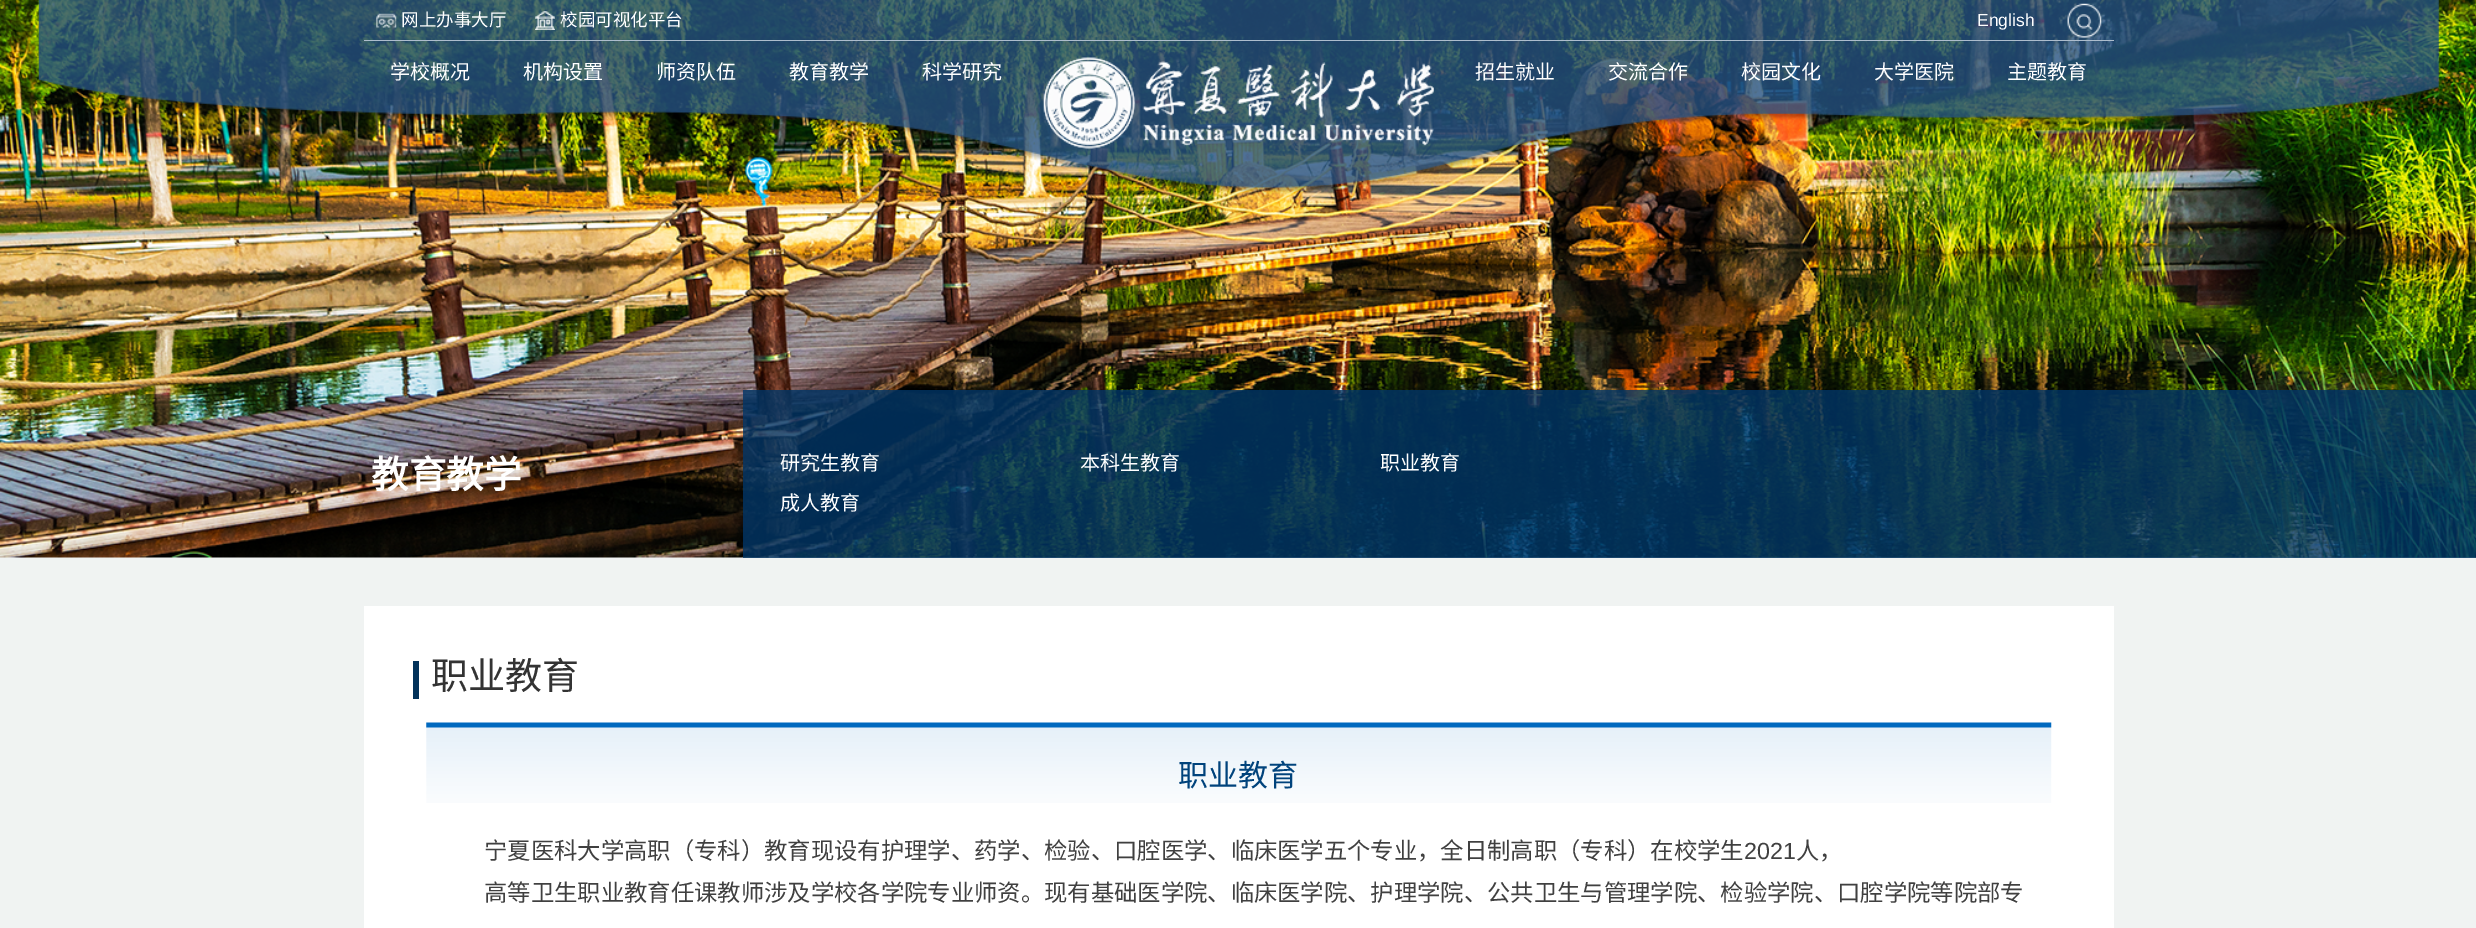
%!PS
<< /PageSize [2476 928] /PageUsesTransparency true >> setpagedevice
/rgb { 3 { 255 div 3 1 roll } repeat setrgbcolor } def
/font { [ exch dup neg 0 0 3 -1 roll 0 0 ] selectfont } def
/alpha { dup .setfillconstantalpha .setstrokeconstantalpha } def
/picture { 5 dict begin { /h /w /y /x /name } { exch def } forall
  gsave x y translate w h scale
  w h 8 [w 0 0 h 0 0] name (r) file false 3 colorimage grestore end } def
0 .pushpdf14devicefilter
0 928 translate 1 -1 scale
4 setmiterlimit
240 243 242 rgb
0 0 2476 928 rectfill
(img/6.rgb) 0 0 2476 558 picture
(img/1.rgb) 38 0 2401 194 picture
173 189 205 rgb
364 40 1750 1 rectfill
(img/2.rgb) 376 13 21 15 picture
(img/3.rgb) 535 11 20 19 picture
(img/4.rgb) 2067 3 35 35 picture
(img/5.rgb) 1043 57 391 92 picture
0.8 alpha
[
  [743 390 1733 168 0 53 103]
] { aload pop rgb rectfill } forall
1 alpha
[
  [364 606 1750 322 255 255 255]
  [413 661 6 38 2 50 90]
] { aload pop rgb rectfill } forall
(img/7.rgb) 426 722 1626 81 picture
/NotoSansCJKSC-Regular 17.5 font
255 255 255 rgb
401 26 moveto (网上办事大厅) show
560 26 moveto (校园可视化平台) show
/LiberationSans-Regular 17.5 font
1977 26 moveto (English) show
/NotoSansCJKSC-Regular 20 font
[
  [(学校概况) 390 79]
  [(机构设置) 523 79]
  [(师资队伍) 656 79]
  [(教育教学) 789 79]
  [(科学研究) 922 79]
  [(招生就业) 1475 79]
  [(交流合作) 1608 79]
  [(校园文化) 1741 79]
  [(大学医院) 1874 79]
  [(主题教育) 2007 79]
] { aload pop moveto show } forall
/NotoSansCJKSC-Bold 37.5 font
371 488 moveto (教育教学) show
/NotoSansCJKSC-Regular 20 font
[
  [(研究生教育) 780 470]
  [(本科生教育) 1080 470]
  [(职业教育) 1380 470]
  [(成人教育) 780 510]
] { aload pop moveto show } forall
/NotoSansCJKSC-Regular 37 font
51 51 51 rgb
431 689 moveto (职业教育) show
/NotoSansCJKSC-Regular 30 font
0 67 124 rgb
1178 786 moveto (职业教育) show
/NotoSansCJKSC-Regular 23.33 font
64 64 64 rgb
484 859 moveto (宁夏医科大学高职（专科）教育现设有护理学、药学、检验、口腔医学、临床医学五个专业，全日制高职（专科）在校学生) show
/LiberationSans-Regular 23.33 font
1744 859 moveto (2021) show
/NotoSansCJKSC-Regular 23.33 font
1796 859 moveto (人，) show
484 901 moveto (高等卫生职业教育任课教师涉及学校各学院专业师资。现有基础医学院、临床医学院、护理学院、公共卫生与管理学院、检验学院、口腔学院等院部专) show
.poppdf14devicefilter showpage
